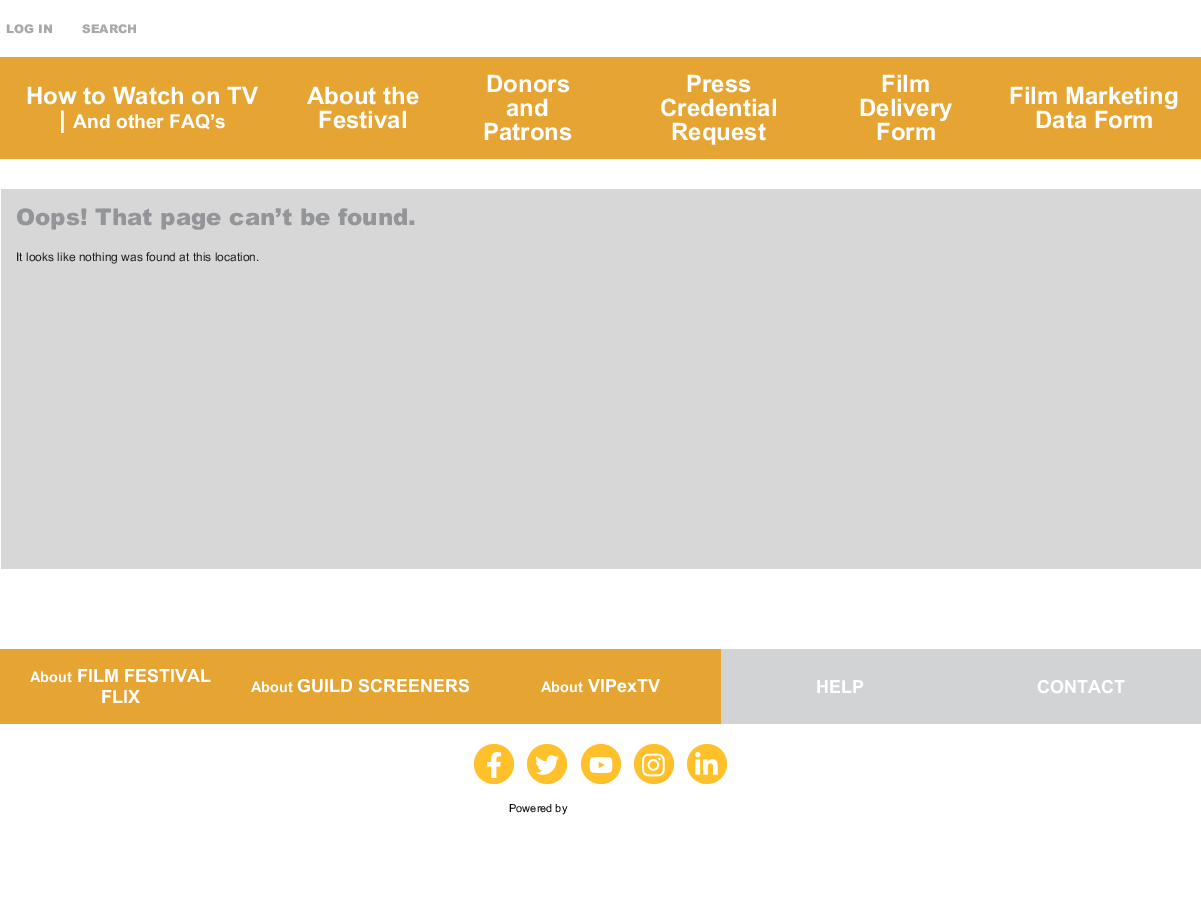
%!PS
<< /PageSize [1201 919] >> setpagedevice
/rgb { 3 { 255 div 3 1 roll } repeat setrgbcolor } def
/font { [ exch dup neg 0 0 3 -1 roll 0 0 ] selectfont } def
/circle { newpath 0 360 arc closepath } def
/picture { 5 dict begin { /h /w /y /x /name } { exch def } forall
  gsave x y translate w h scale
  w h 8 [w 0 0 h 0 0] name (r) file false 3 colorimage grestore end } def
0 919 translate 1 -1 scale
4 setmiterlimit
255 255 255 rgb
0 0 1201 919 rectfill
[
  [0 57 1201 102 230 164 50]
  [1 189 1200 380 215 215 215]
  [0 649 721 75 230 164 50]
  [721 649 480 75 210 211 212]
] { aload pop rgb rectfill } forall
255 192 41 rgb
494 764 20 circle fill
(img/1.rgb) 487 752 15 26 picture
547 764 20 circle fill
(img/2.rgb) 535 755 24 20 picture
601 764 20 circle fill
(img/3.rgb) 589 757 24 16 picture
654 764 20 circle fill
(img/4.rgb) 642 753 23 24 picture
707 764 20 circle fill
(img/5.rgb) 695 752 23 23 picture
/Arial-Black 12 font
167 169 172 rgb
6 33 moveto (LOG IN) show
82 33 moveto (SEARCH) show
/Arial-Bold 24 font
255 255 255 rgb
26 104 moveto (How to Watch on TV) show
59 128 moveto (|) show
/Arial-Bold 19.25 font
73 128 moveto (And other FAQ’s) show
/Arial-Bold 24 font
[
  [(About the) 307 104]
  [(Festival) 318 128]
  [(Donors) 486 92]
  [(and) 506 116]
  [(Patrons) 483 140]
  [(Press) 686 92]
  [(Credential) 660 116]
  [(Request) 671 140]
  [(Film) 881 92]
  [(Delivery) 859 116]
  [(Form) 876 140]
  [(Film Marketing) 1009 104]
  [(Data Form) 1035 128]
] { aload pop moveto show } forall
/Arial-Black 23 font
147 149 152 rgb
16 225 moveto (Oops! That page can’t be found.) show
/Arial-Regular 12 font
35 31 32 rgb
16 261 moveto (It looks like nothing was found at this location.) show
/Arial-Bold 14.5 font
255 255 255 rgb
30 682 moveto (About) show
/Arial-Bold 18 font
77 682 moveto (FILM FESTIVAL) show
101 703 moveto (FLIX) show
/Arial-Bold 14.5 font
251 692 moveto (About) show
/Arial-Bold 18 font
297 692 moveto (GUILD SCREENERS) show
/Arial-Bold 14.5 font
541 692 moveto (About) show
/Arial-Bold 18 font
[
  [(VIPexTV) 588 692]
  [(HELP) 816 693]
  [(CONTACT) 1037 693]
] { aload pop moveto show } forall
/Arial-Regular 11 font
0 0 0 rgb
509 812 moveto (Powered by) show
showpage
